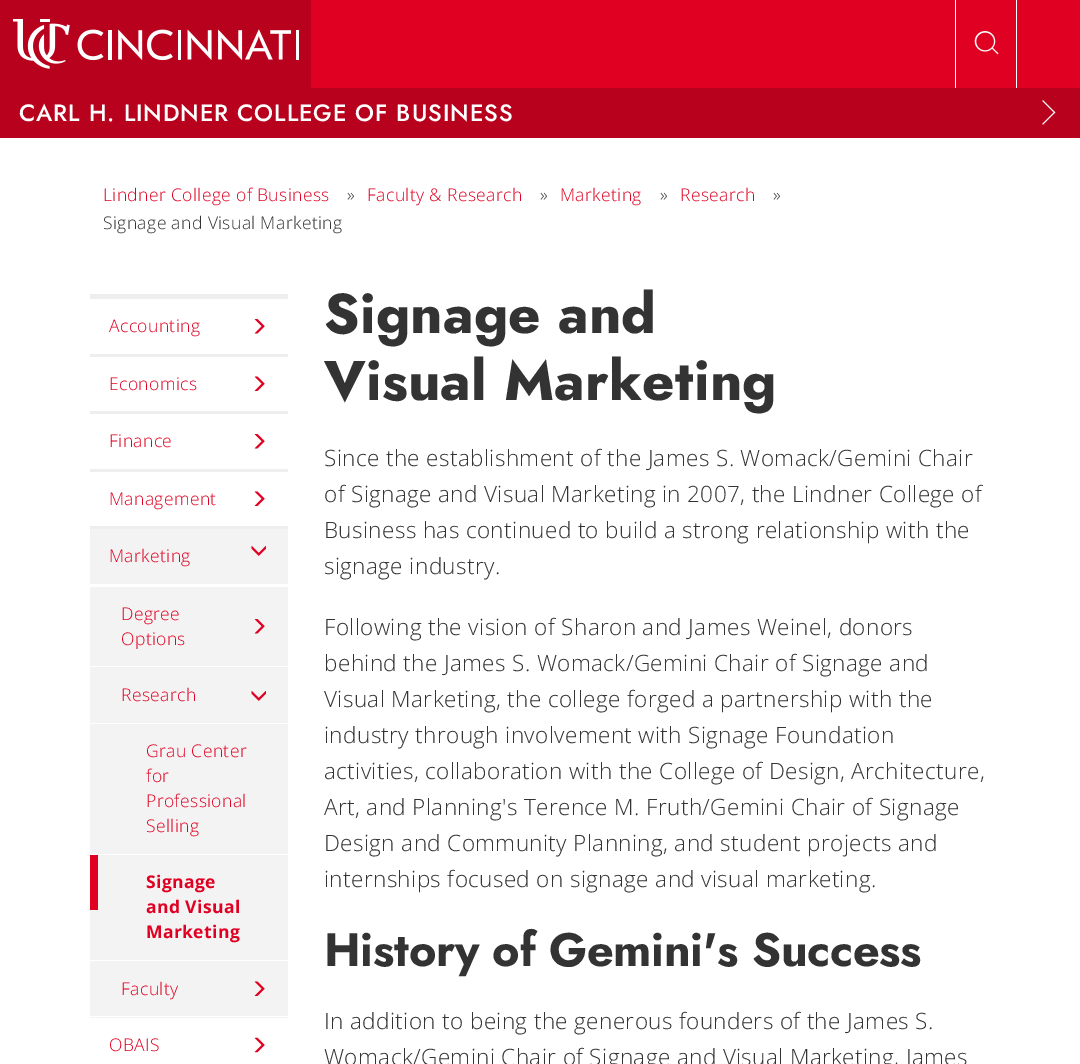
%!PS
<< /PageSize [1080 1064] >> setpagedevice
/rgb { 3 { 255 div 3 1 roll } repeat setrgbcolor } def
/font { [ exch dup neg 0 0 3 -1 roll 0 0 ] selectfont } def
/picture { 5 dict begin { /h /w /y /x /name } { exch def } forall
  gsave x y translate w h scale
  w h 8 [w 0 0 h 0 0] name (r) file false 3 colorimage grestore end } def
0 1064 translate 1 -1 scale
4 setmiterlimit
255 255 255 rgb
0 0 1080 1064 rectfill
224 1 34 rgb
311 0 769 88 rectfill
184 1 28 rgb
0 0 311 88 rectfill
(img/1.rgb) 13 19 286 50 picture
255 255 255 rgb
1016 0 1 88 rectfill
955 0 1 88 rectfill
(img/2.rgb) 974 31 25 24 picture
184 1 28 rgb
0 88 1080 50 rectfill
(img/3.rgb) 1042 100 14 25 picture
238 238 238 rgb
90 294 198 5 rectfill
90 354 198 3 rectfill
(img/4.rgb) 254 319 11 15 picture
90 411 198 3 rectfill
(img/5.rgb) 254 376 11 15 picture
90 469 198 3 rectfill
(img/4.rgb) 254 434 11 15 picture
90 526 198 3 rectfill
(img/5.rgb) 254 491 11 15 picture
243 243 243 rgb
90 529 198 55 rectfill
(img/6.rgb) 251 545 15 11 picture
90 587 198 431 rectfill
255 255 255 rgb
90 666 198 1 rectfill
(img/7.rgb) 254 619 11 15 picture
90 723 198 1 rectfill
(img/6.rgb) 251 690 15 11 picture
[
  [90 854 198 1 255 255 255]
  [90 960 198 1 255 255 255]
  [90 855 8 55 224 1 34]
  [90 1016 198 1 255 255 255]
] { aload pop rgb rectfill } forall
(img/8.rgb) 254 981 11 15 picture
(img/9.rgb) 254 1037 11 16 picture
/Jost-Medium 23.6 font
19 121 moveto 0.95 0 (CARL H. LINDNER COLLEGE OF BUSINESS) ashow
/OpenSans-Light 17.5 font
224 1 34 rgb
103 201 moveto 0.38 0 (Lindner College of Business) ashow
51 51 51 rgb
347 201 moveto 0.38 0 (») ashow
224 1 34 rgb
367 201 moveto 0.38 0 (Faculty & Research) ashow
51 51 51 rgb
540 201 moveto 0.38 0 (») ashow
224 1 34 rgb
560 201 moveto 0.38 0 (Marketing) ashow
51 51 51 rgb
660 201 moveto 0.38 0 (») ashow
224 1 34 rgb
680 201 moveto 0.38 0 (Research) ashow
51 51 51 rgb
773 201 moveto 0.38 0 (») ashow
103 229 moveto 0.38 0 (Signage and Visual Marketing) ashow
224 1 34 rgb
109 332 moveto 0.38 0 (Accounting) ashow
109 390 moveto 0.38 0 (Economics) ashow
109 447 moveto 0.38 0 (Finance) ashow
109 505 moveto 0.38 0 (Management) ashow
109 562 moveto 0.38 0 (Marketing) ashow
121 620 moveto 0.38 0 (Degree) ashow
121 645 moveto 0.38 0 (Options) ashow
121 701 moveto 0.38 0 (Research) ashow
146 757 moveto 0.38 0 (Grau Center) ashow
146 782 moveto 0.38 0 (for) ashow
146 807 moveto 0.38 0 (Professional) ashow
146 832 moveto 0.38 0 (Selling) ashow
/OpenSans-Bold 17.5 font
146 888 moveto 0.38 0 (Signage) ashow
146 913 moveto 0.38 0 (and Visual) ashow
146 938 moveto 0.38 0 (Marketing) ashow
/OpenSans-Light 17.5 font
121 995 moveto 0.38 0 (Faculty) ashow
109 1051 moveto 0.38 0 (OBAIS) ashow
/Jost-Bold 55.75 font
51 51 51 rgb
324 333 moveto 0.25 0 (Signage and) ashow
324 400 moveto 0.25 0 (Visual Marketing) ashow
/OpenSans-Light 22.5 font
324 466 moveto 0.38 0 (Since the establishment of the James S. Womack/Gemini Chair) ashow
324 502 moveto 0.38 0 (of Signage and Visual Marketing in 2007, the Lindner College of) ashow
324 538 moveto 0.38 0 (Business has continued to build a strong relationship with the) ashow
324 574 moveto 0.38 0 (signage industry.) ashow
324 635 moveto 0.38 0 (Following the vision of Sharon and James Weinel, donors) ashow
324 671 moveto 0.38 0 (behind the James S. Womack/Gemini Chair of Signage and) ashow
324 707 moveto 0.38 0 (Visual Marketing, the college forged a partnership with the) ashow
324 743 moveto 0.38 0 (industry through involvement with Signage Foundation) ashow
324 779 moveto 0.38 0 (activities, collaboration with the College of Design, Architecture,) ashow
324 815 moveto 0.38 0 (Art, and Planning's Terence M. Fruth/Gemini Chair of Signage) ashow
324 851 moveto 0.38 0 (Design and Community Planning, and student projects and) ashow
324 887 moveto 0.38 0 (internships focused on signage and visual marketing.) ashow
/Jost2-Bold 46.7 font
324 966 moveto -0.3 0 (History of Gemini's Success) ashow
/OpenSans-Light 22.5 font
324 1029 moveto 0.38 0 (In addition to being the generous founders of the James S.) ashow
324 1065 moveto 0.38 0 (Womack/Gemini Chair of Signage and Visual Marketing, James) ashow
showpage
